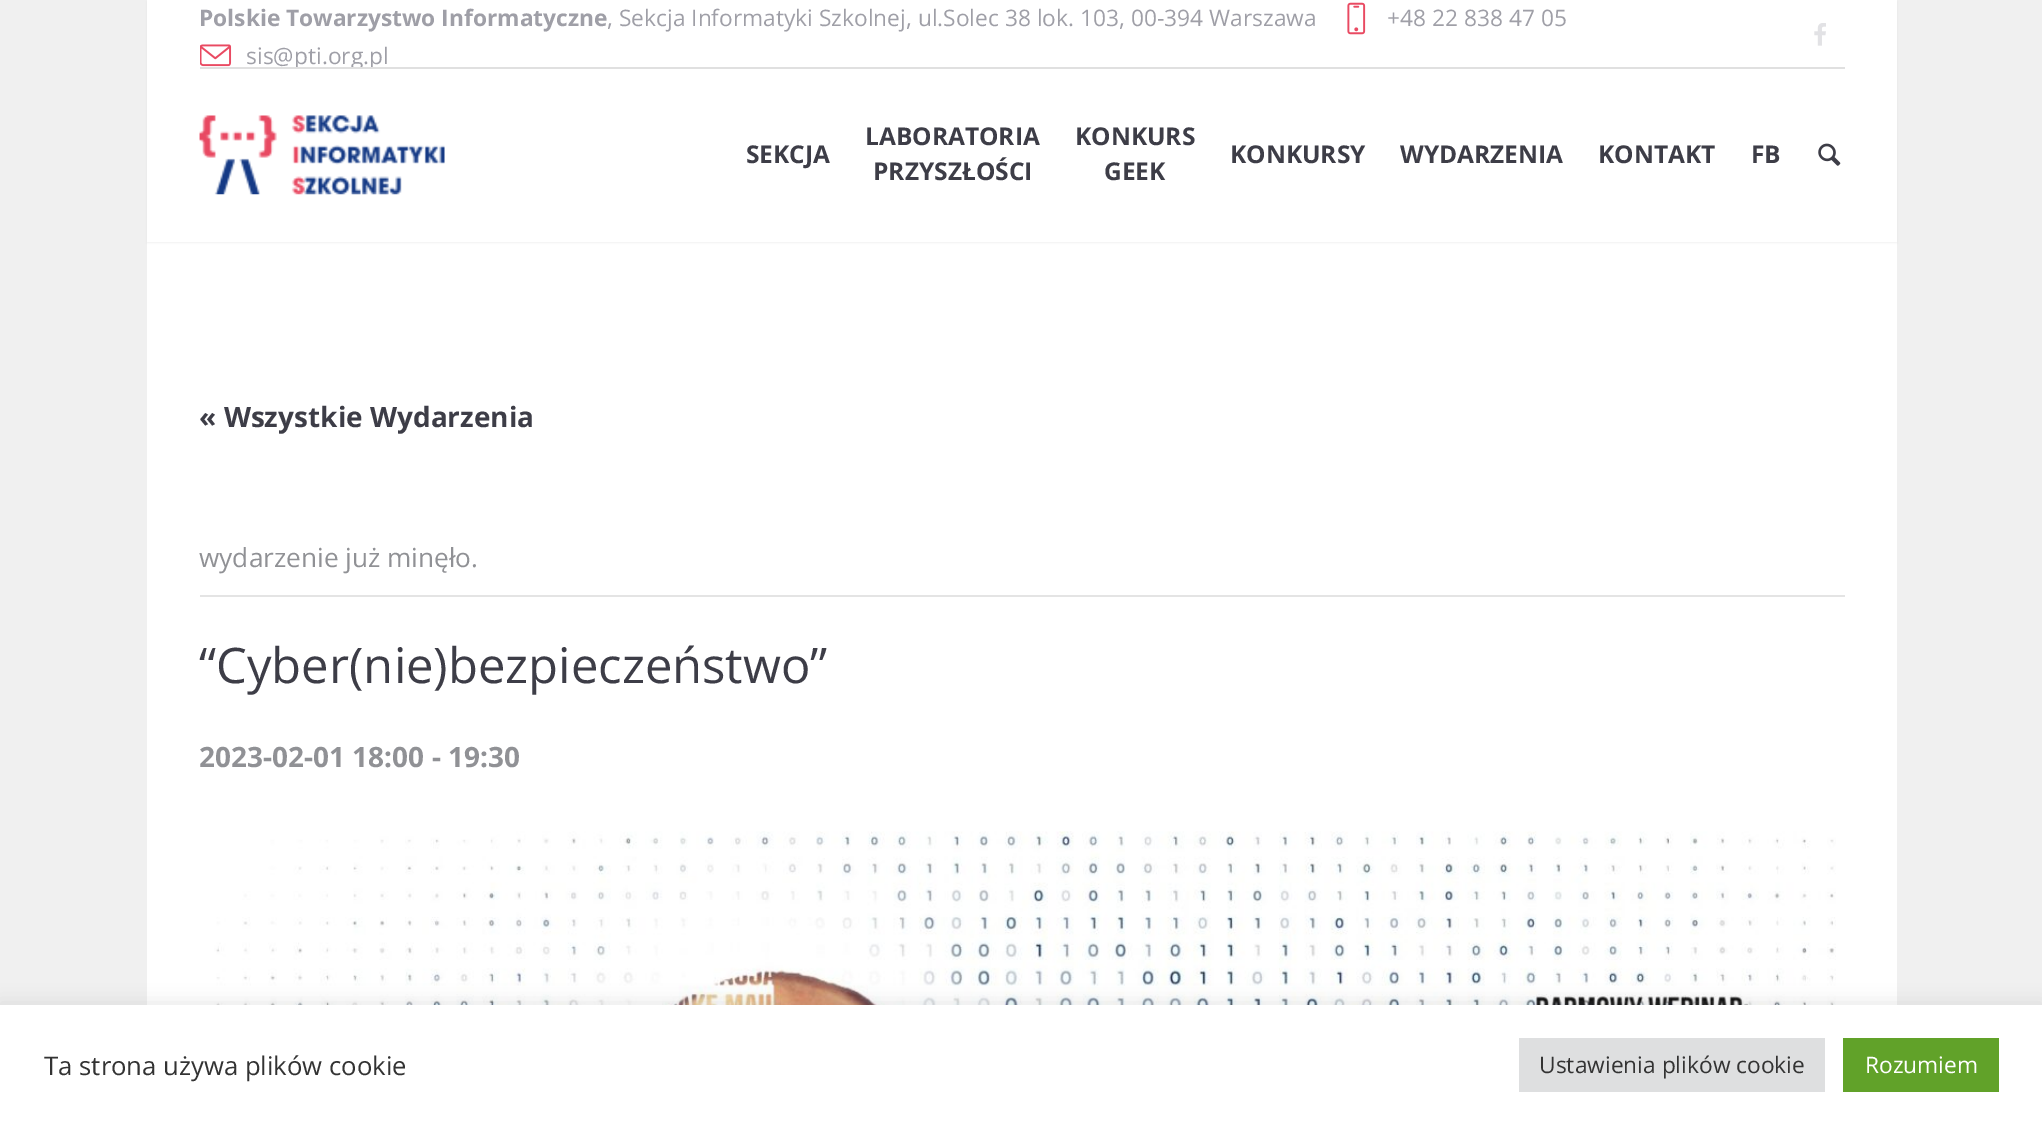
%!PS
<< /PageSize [2042 1125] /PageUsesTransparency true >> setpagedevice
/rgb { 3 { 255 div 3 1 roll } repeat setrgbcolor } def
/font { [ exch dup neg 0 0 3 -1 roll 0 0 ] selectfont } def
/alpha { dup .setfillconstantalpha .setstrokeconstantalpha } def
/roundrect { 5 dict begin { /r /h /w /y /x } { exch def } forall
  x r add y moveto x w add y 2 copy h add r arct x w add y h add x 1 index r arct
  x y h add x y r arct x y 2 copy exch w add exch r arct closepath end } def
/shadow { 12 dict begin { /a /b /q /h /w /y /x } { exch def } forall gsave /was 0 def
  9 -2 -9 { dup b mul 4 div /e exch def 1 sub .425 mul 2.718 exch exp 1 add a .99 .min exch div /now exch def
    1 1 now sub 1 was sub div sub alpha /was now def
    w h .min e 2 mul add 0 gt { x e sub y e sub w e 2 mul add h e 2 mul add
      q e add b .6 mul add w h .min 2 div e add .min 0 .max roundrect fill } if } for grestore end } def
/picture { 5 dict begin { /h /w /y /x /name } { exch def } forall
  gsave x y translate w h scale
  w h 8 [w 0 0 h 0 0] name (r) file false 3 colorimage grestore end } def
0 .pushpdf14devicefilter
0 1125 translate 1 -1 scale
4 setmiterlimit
240 240 240 rgb
0 0 2042 1125 rectfill
255 255 255 rgb
147 242 1750 763 rectfill
0 0 0 rgb
147 2 1750 241 0 1 0.05 shadow
255 255 255 rgb
147 0 1750 242 rectfill
(img/1.rgb) 1347 2 19 33 picture
(img/2.rgb) 200 44 32 23 picture
(img/3.rgb) 1814 23 12 23 picture
224 224 224 rgb
200 67 1645 2 rectfill
(img/4.rgb) 199 115 246 80 picture
(img/5.rgb) 1818 143 23 23 picture
228 228 228 rgb
200 595 1645 2 rectfill
(img/6.rgb) 214 831 1622 174 picture
172 171 171 rgb
0 1003 2042 121 0 9 0.3 shadow
[
  [0 1005 2042 120 255 255 255]
  [1519 1038 306 54 222 223 224]
  [1843 1038 156 54 97 162 41]
] { aload pop rgb rectfill } forall
/OpenSans-Bold 22.75 font
159 159 167 rgb
199 26 moveto (Polskie Towarzystwo Informatyczne) show
/OpenSans-Regular 22.75 font
607 26 moveto (, Sekcja Informatyki Szkolnej, ul.Solec 38 lok. 103, 00-394 Warszawa) show
1387 26 moveto (+48 22 838 47 05) show
gsave
200 0 1603 67 rectclip
246 64 moveto (sis@pti.org.pl) show
grestore
/OpenSans-Bold 24.5 font
61 61 71 rgb
[
  [(SEKCJA) 746 163]
  [(LABORATORIA) 865 145]
  [(PRZYSZŁOŚCI) 873 180]
  [(KONKURS) 1075 145]
  [(GEEK) 1104 180]
  [(KONKURSY) 1230 163]
  [(WYDARZENIA) 1400 163]
  [(KONTAKT) 1598 163]
  [(FB) 1751 163]
] { aload pop moveto show } forall
/OpenSans-Bold 28 font
199 427 moveto (« Wszystkie Wydarzenia) show
/OpenSans-Regular 26.25 font
144 145 149 rgb
199 567 moveto (wydarzenie już minęło.) show
/OpenSans-Regular 49 font
61 61 71 rgb
199 683 moveto (“Cyber\(nie\)bezpieczeństwo”) show
/OpenSans-Bold 28 font
144 145 149 rgb
199 767 moveto (2023-02-01 18:00 - 19:30) show
/OpenSans-Regular 25.7 font
51 51 51 rgb
44 1075 moveto (Ta strona używa plików cookie) show
/OpenSans-Regular 22.75 font
1539 1073 moveto (Ustawienia plików cookie) show
255 255 255 rgb
1865 1073 moveto (Rozumiem) show
.poppdf14devicefilter showpage
